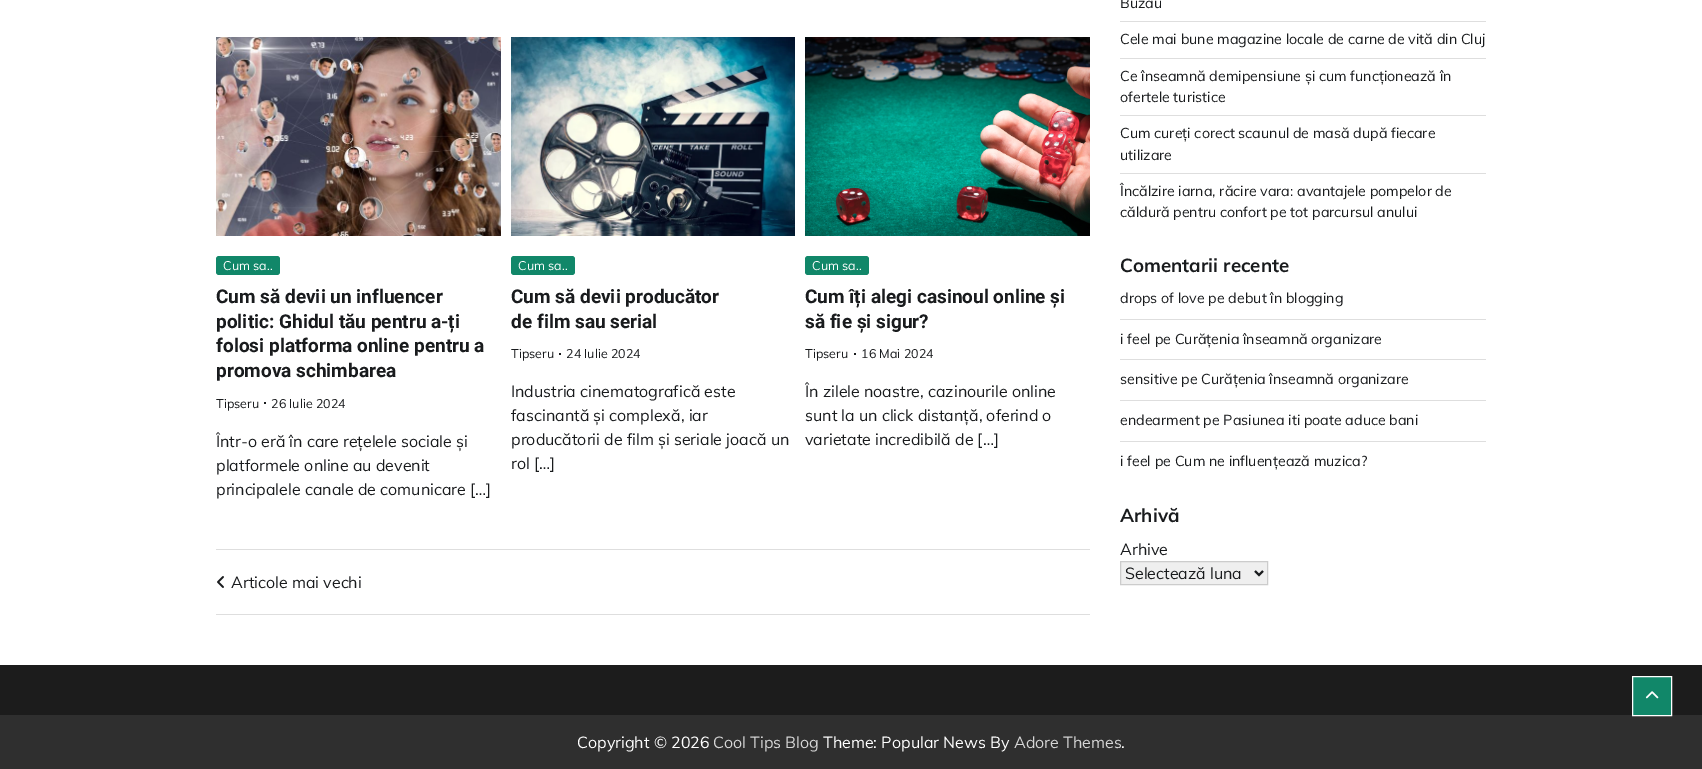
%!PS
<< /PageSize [1702 769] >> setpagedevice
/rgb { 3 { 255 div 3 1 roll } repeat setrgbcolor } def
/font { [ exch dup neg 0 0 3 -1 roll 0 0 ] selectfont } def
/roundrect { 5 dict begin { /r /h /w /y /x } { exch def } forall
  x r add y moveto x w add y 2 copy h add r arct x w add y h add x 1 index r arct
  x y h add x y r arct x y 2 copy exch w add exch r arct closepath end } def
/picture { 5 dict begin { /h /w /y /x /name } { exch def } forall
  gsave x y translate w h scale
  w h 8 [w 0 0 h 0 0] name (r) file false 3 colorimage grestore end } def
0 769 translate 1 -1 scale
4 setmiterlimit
255 255 255 rgb
0 0 1702 769 rectfill
(img/1.rgb) 216 37 285 199 picture
17 135 105 rgb
216 256 64 19 3 roundrect fill
25 27 29 rgb
264 402 2 2 rectfill
(img/2.rgb) 511 37 284 199 picture
17 135 105 rgb
511 256 64 19 3 roundrect fill
25 27 29 rgb
559 353 2 2 rectfill
(img/3.rgb) 805 37 285 199 picture
17 135 105 rgb
805 256 64 19 3 roundrect fill
[
  [854 353 2 2 25 27 29]
  [216 549 874 1 222 222 222]
  [216 614 874 1 222 222 222]
] { aload pop rgb rectfill } forall
(img/4.rgb) 217 576 7 12 picture
[
  [1120 21 366 1 222 222 222]
  [1120 58 366 1 222 222 222]
  [1120 115 366 1 222 222 222]
  [1120 173 366 1 222 222 222]
  [1120 319 366 1 222 222 222]
  [1120 359 366 1 222 222 222]
  [1120 400 366 1 222 222 222]
  [1120 441 366 1 222 222 222]
] { aload pop rgb rectfill } forall
239 239 239 rgb
1120.5 561.5 moveto 1267.5 561.5 lineto 1267.5 584.5 lineto 1120.5 584.5 lineto closepath gsave fill grestore
204 204 204 rgb
stroke
25 27 29 rgb
2 setlinewidth
1255 571 moveto 1259 575 lineto 1263 571 lineto stroke
28 28 28 rgb
0 665 1702 50 rectfill
47 47 47 rgb
0 715 1702 54 rectfill
17 135 105 rgb
1632.5 676.5 moveto 1671.5 676.5 lineto 1671.5 715.5 lineto 1632.5 715.5 lineto closepath gsave fill grestore
255 255 255 rgb
1 setlinewidth
stroke
(img/5.rgb) 1645 691 14 8 picture
/Muli-Regular 12.5 font
223 270 moveto (Cum sa..) show
/Roboto-Bold 19 font
25 27 29 rgb
[
  [(Cum să devii un influencer) 216 303]
  [(politic: Ghidul tău pentru a-ți) 216 328]
  [(folosi platforma online pentru a) 216 352]
  [(promova schimbarea) 216 377]
] { aload pop moveto show } forall
/Muli-Regular 12.5 font
216 408 moveto (Tipseru) show
271 408 moveto (26 Iulie 2024) show
/Muli-Regular 16 font
[
  [(Într-o eră în care rețelele sociale și) 216 447]
  [(platformele online au devenit) 216 471]
  [(principalele canale de comunicare […]) 216 495]
] { aload pop moveto show } forall
/Muli-Regular 12.5 font
255 255 255 rgb
518 270 moveto (Cum sa..) show
/Roboto-Bold 19 font
25 27 29 rgb
511 303 moveto (Cum să devii producător) show
511 328 moveto (de film sau serial) show
/Muli-Regular 12.5 font
511 358 moveto (Tipseru) show
566 358 moveto (24 Iulie 2024) show
/Muli-Regular 16 font
[
  [(Industria cinematografică este) 511 397]
  [(fascinantă și complexă, iar) 511 421]
  [(producătorii de film și seriale joacă un) 511 445]
  [(rol […]) 511 469]
] { aload pop moveto show } forall
/Muli-Regular 12.5 font
255 255 255 rgb
812 270 moveto (Cum sa..) show
/Roboto-Bold 19 font
25 27 29 rgb
805 303 moveto (Cum îți alegi casinoul online și) show
805 328 moveto (să fie și sigur?) show
/Muli-Regular 12.5 font
805 358 moveto (Tipseru) show
861 358 moveto (16 Mai 2024) show
/Muli-Regular 16 font
[
  [(În zilele noastre, cazinourile online) 805 397]
  [(sunt la un click distanță, oferind o) 805 421]
  [(varietate incredibilă de […]) 805 445]
  [(Articole mai vechi) 231 588]
] { aload pop moveto show } forall
/Muli-Regular 14.25 font
[
  [(Buzău) 1120 8]
  [(Cele mai bune magazine locale de carne de vită din Cluj) 1120 44]
  [(Ce înseamnă demipensiune și cum funcționează în) 1120 81]
  [(ofertele turistice) 1120 102]
  [(Cum cureți corect scaunul de masă după fiecare) 1120 138]
  [(utilizare) 1120 160]
  [(Încălzire iarna, răcire vara: avantajele pompelor de) 1120 196]
  [(căldură pentru confort pe tot parcursul anului) 1120 217]
] { aload pop moveto show } forall
/Muli-Bold 18.75 font
1120 272 moveto (Comentarii recente) show
/Muli-Regular 14.25 font
[
  [(drops of love pe debut în blogging) 1120 303]
  [(i feel pe Curățenia înseamnă organizare) 1120 344]
  [(sensitive pe Curățenia înseamnă organizare) 1120 384]
  [(endearment pe Pasiunea iti poate aduce bani) 1120 425]
  [(i feel pe Cum ne influențează muzica?) 1120 466]
] { aload pop moveto show } forall
/Muli-Bold 18.75 font
1120 522 moveto (Arhivă) show
/Muli-Regular 16 font
1120 555 moveto (Arhive) show
1125 579 moveto (Selectează luna) show
255 255 255 rgb
577 748 moveto (Copyright © 2026) show
213 213 213 rgb
713 748 moveto (Cool Tips Blog) show
255 255 255 rgb
823 748 moveto (Theme: Popular News By) show
213 213 213 rgb
1014 748 moveto (Adore Themes) show
255 255 255 rgb
1121 748 moveto (.) show
showpage
